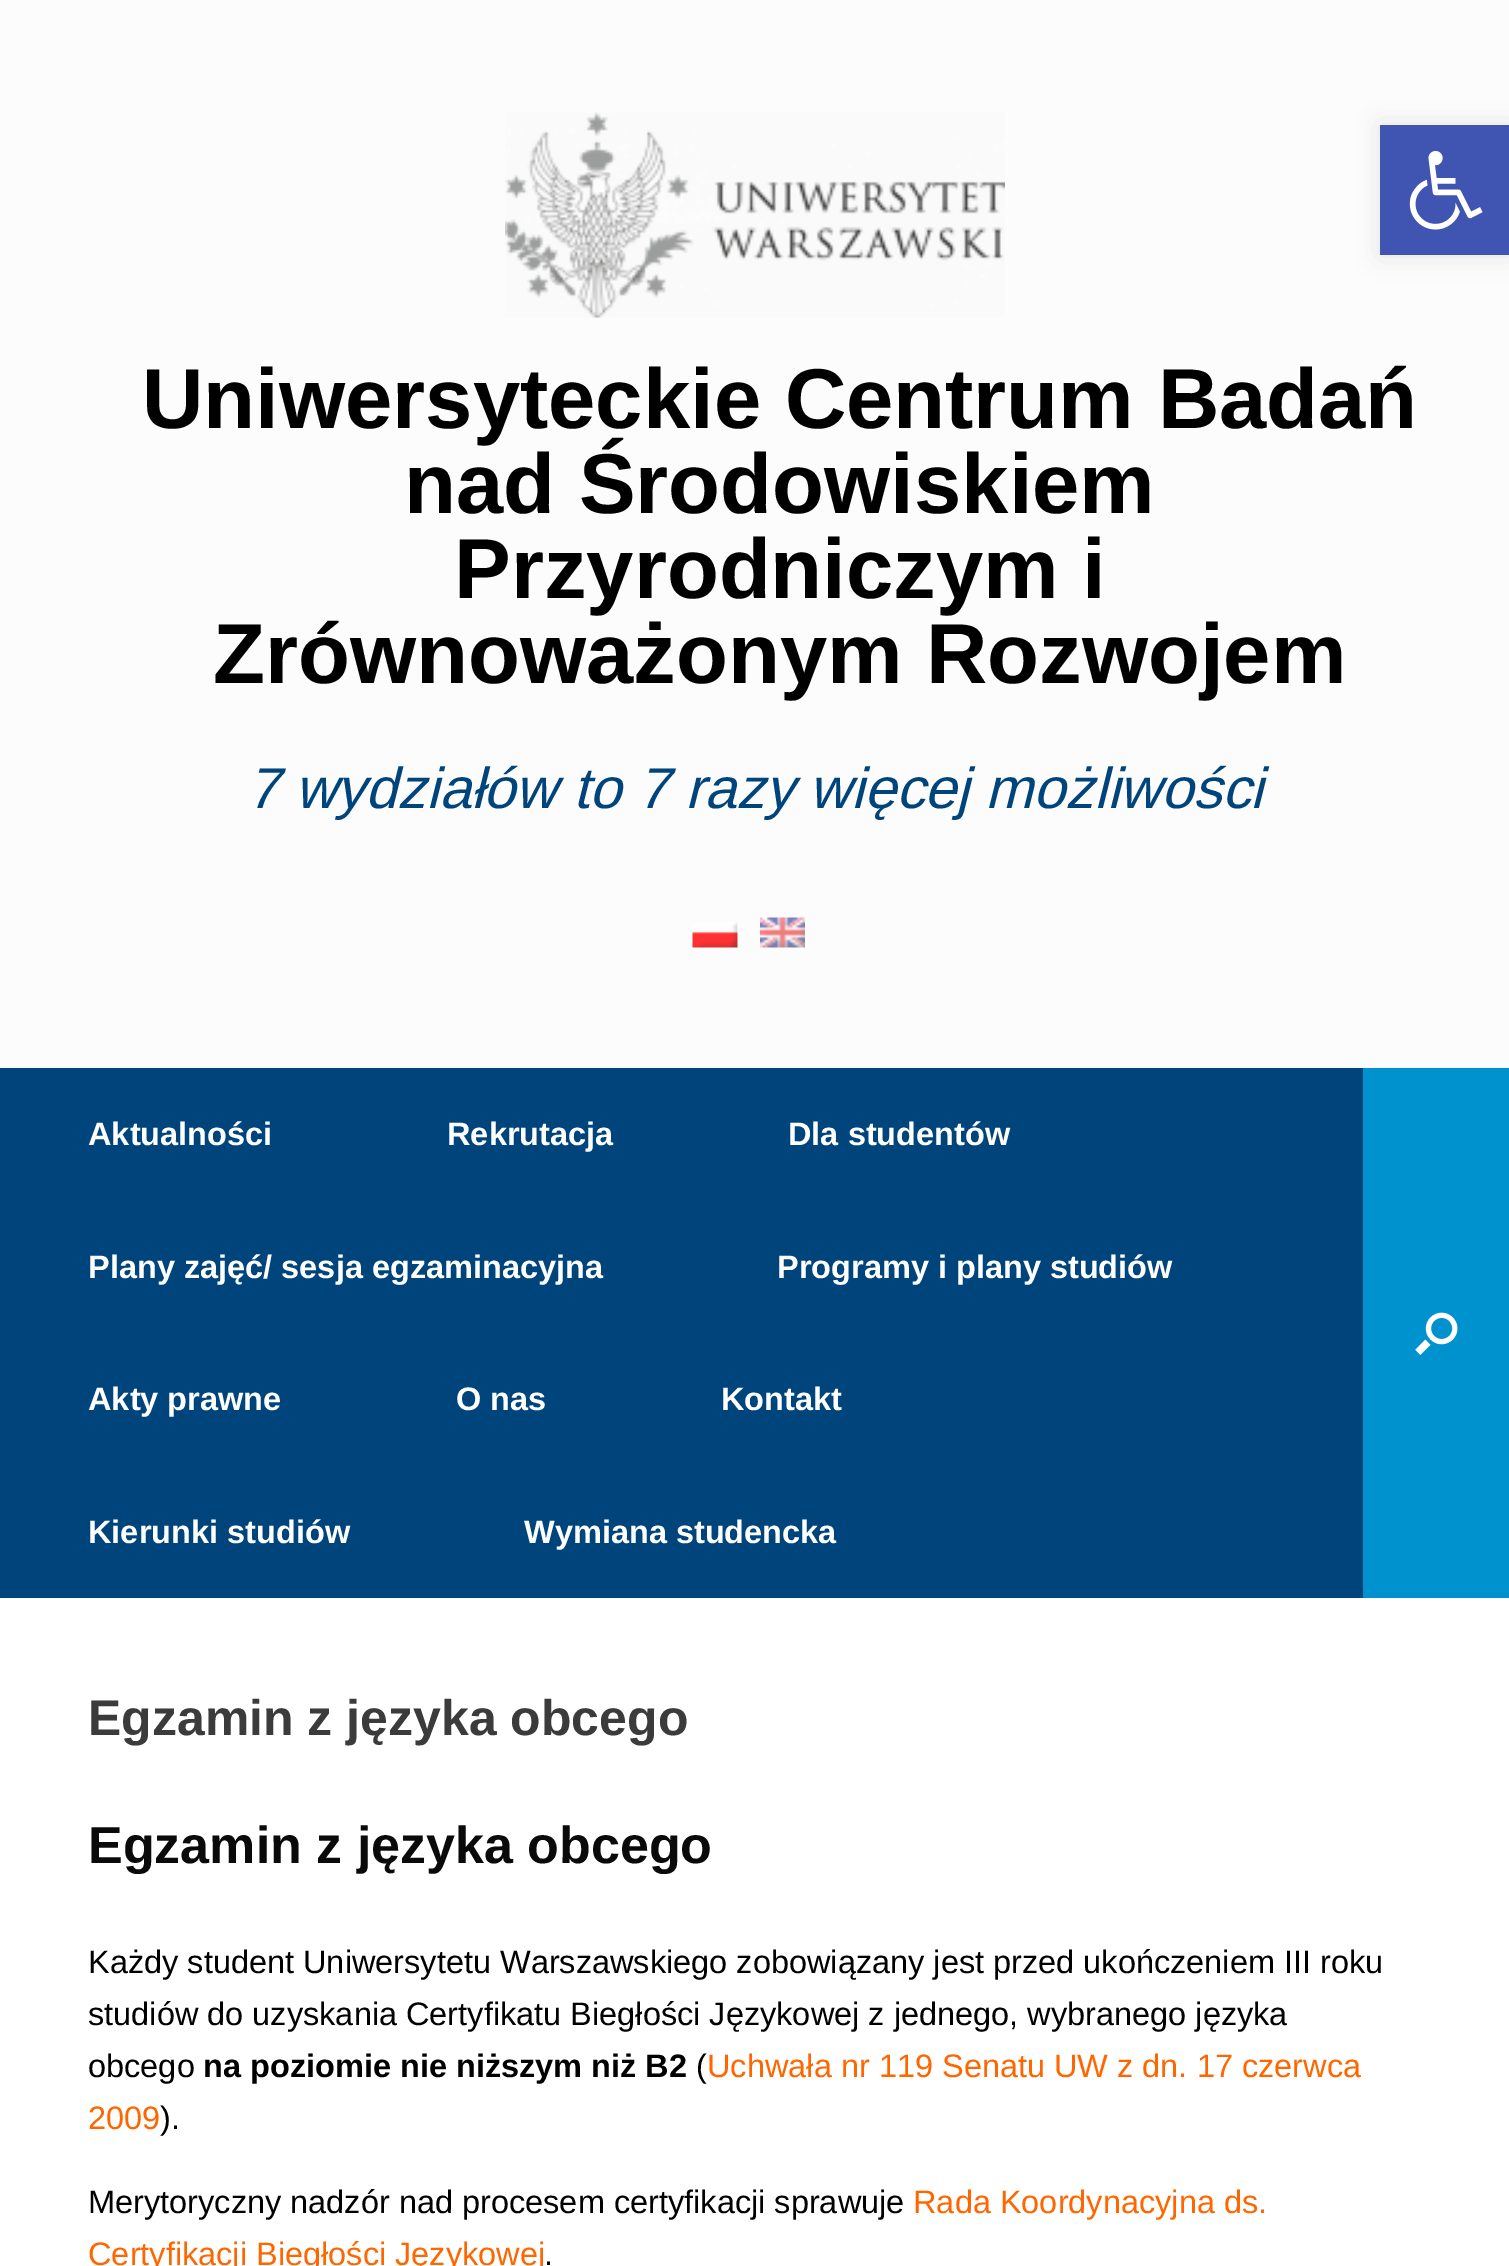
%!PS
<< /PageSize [1509 2266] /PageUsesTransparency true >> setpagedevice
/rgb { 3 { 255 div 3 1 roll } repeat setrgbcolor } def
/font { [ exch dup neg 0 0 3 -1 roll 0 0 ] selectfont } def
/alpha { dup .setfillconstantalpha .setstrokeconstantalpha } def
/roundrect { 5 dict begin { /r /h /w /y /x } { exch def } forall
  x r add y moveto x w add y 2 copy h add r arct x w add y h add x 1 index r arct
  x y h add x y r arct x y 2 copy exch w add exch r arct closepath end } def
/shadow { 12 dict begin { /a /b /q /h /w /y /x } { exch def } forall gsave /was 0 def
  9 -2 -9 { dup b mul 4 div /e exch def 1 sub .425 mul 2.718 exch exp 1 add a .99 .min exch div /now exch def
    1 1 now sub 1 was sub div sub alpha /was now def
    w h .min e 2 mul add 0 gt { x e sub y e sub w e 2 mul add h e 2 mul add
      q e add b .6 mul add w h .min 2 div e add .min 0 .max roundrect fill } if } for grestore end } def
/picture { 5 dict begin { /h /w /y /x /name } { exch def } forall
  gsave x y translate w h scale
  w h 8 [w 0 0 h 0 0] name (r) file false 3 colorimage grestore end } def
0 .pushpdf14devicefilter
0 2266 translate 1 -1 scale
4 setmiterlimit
252 252 252 rgb
0 0 1509 2266 rectfill
0 0 0 rgb
1380 125 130 130 0 12.5 0.1 shadow
64 84 178 rgb
1380 125 129 130 rectfill
(img/1.rgb) 1409 151 74 79 picture
(img/2.rgb) 505 112 500 206 picture
(img/3.rgb) 692 922 46 26 picture
(img/4.rgb) 760 917 45 31 picture
0 68 124 rgb
0 1068 1363 530 rectfill
0 146 206 rgb
1363 1068 146 530 rectfill
(img/5.rgb) 1415 1312 43 43 picture
255 255 255 rgb
0 1598 1509 668 rectfill
/Arimo-Bold 85 font
0 0 0 rgb
[
  [(Uniwersyteckie Centrum Badań) 142 428]
  [(nad Środowiskiem) 404 513]
  [(Przyrodniczym i) 454 598]
  [(Zrównoważonym Rozwojem) 213 683]
] { aload pop moveto show } forall
/Arimo-Italic 57.5 font
0 68 124 rgb
247 808 moveto (7 wydziałów to 7 razy więcej możliwości) show
/Arimo-Bold 32.5 font
255 255 255 rgb
[
  [(Aktualności) 88 1145]
  [(Rekrutacja) 447 1145]
  [(Dla studentów) 788 1145]
  [(Plany zajęć/ sesja egzaminacyjna) 88 1278]
  [(Programy i plany studiów) 777 1278]
  [(Akty prawne) 88 1410]
  [(O nas) 456 1410]
  [(Kontakt) 721 1410]
  [(Kierunki studiów) 88 1543]
  [(Wymiana studencka) 524 1543]
] { aload pop moveto show } forall
/Arimo-Bold 50 font
59 59 59 rgb
88 1735 moveto (Egzamin z języka obcego) show
/Arimo-Bold 52 font
10 10 10 rgb
88 1863 moveto (Egzamin z języka obcego) show
/Arimo-Regular 32.5 font
0 0 0 rgb
[
  [(Każdy student Uniwersytetu Warszawskiego zobowiązany jest przed ukończeniem III roku) 88 1973]
  [(studiów do uzyskania Certyfikatu Biegłości Językowej z jednego, wybranego języka) 88 2025]
  [(obcego) 88 2077]
] { aload pop moveto show } forall
/Arimo-Bold 32.5 font
203 2077 moveto (na poziomie nie niższym niż B2) show
/Arimo-Regular 32.5 font
696 2077 moveto (\() show
255 102 0 rgb
707 2077 moveto (Uchwała nr 119 Senatu UW z dn. 17 czerwca) show
88 2129 moveto (2009) show
0 0 0 rgb
160 2129 moveto (\).) show
88 2213 moveto (Merytoryczny nadzór nad procesem certyfikacji sprawuje) show
255 102 0 rgb
913 2213 moveto (Rada Koordynacyjna ds.) show
88 2265 moveto (Certyfikacji Biegłości Językowej) show
0 0 0 rgb
544 2265 moveto (.) show
.poppdf14devicefilter showpage
